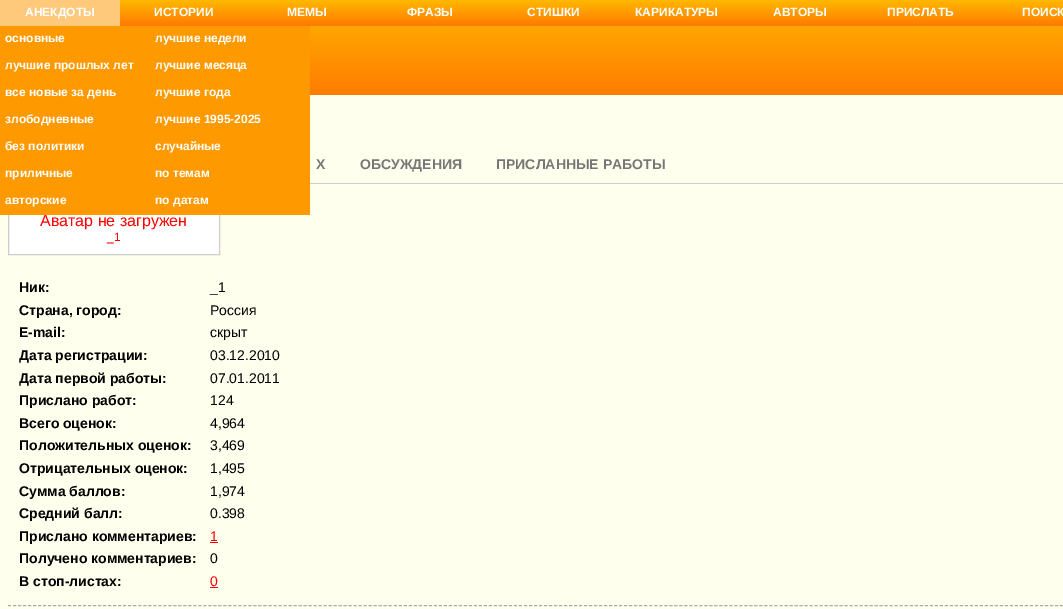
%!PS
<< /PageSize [1063 609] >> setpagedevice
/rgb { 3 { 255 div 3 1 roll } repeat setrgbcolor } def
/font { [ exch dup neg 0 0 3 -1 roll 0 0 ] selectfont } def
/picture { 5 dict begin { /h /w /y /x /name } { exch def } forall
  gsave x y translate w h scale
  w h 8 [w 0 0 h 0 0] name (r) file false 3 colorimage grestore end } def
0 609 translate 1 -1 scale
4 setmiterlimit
255 255 238 rgb
0 0 1063 609 rectfill
gsave 120 0 moveto 1063 0 lineto 1063 26 lineto 120 26 lineto closepath clip newpath
<< /ShadingType 2 /ColorSpace /DeviceRGB /Coords [532 0 532 26] /Extend [true true] /Function << /FunctionType 2 /Domain [0 1] /C0 [1 0.722 0] /C1 [1 0.478 0] /N 1 >> >> shfill grestore
255 201 124 rgb
0 0 120 26 rectfill
255 255 255 rgb
9 215 210 39 rectfill
204 204 204 rgb
8.5 204.5 211 50 rectstroke
255 153 0 rgb
0 26 150 189 rectfill
150 26 160 189 rectfill
(img/1.rgb) 310 26 753 69 picture
204 204 204 rgb
310 183 753 1 rectfill
170 170 170 rgb
[3 2.01] 0 setdash
8 605.5 moveto 1063 605.5 lineto stroke
255 0 0 rgb
210 542 8 1 rectfill
210 587 8 1 rectfill
/LiberationSans-Bold 12 font
255 255 255 rgb
[
  [(АНЕКДОТЫ) 25 16]
  [(основные) 5 42]
  [(лучшие прошлых лет) 5 69]
  [(все новые за день) 5 96]
  [(злободневные) 5 123]
  [(без политики) 5 150]
  [(приличные) 5 177]
  [(авторские) 5 204]
  [(лучшие недели) 155 42]
  [(лучшие месяца) 155 69]
  [(лучшие года) 155 96]
  [(лучшие 1995-2025) 155 123]
  [(случайные) 155 150]
  [(по темам) 155 177]
  [(по датам) 155 204]
  [(ИСТОРИИ) 154 16]
  [(МЕМЫ) 287 16]
  [(ФРАЗЫ) 407 16]
  [(СТИШКИ) 527 16]
  [(КАРИКАТУРЫ) 635 16]
  [(АВТОРЫ) 773 16]
  [(ПРИСЛАТЬ) 887 16]
  [(ПОИСК) 1022 16]
] { aload pop moveto show } forall
/LiberationSans-Bold 14 font
119 119 119 rgb
[
  [(Х) 316 169]
  [(ОБСУЖДЕНИЯ) 360 169]
  [(ПРИСЛАННЫЕ РАБОТЫ) 496 169]
] { aload pop moveto show } forall
/LiberationSans-Regular 16 font
255 0 0 rgb
40 226 moveto (Аватар не загружен) show
/LiberationSans-Regular 12 font
107 241 moveto (_1) show
/LiberationSans-Bold 14 font
0 0 0 rgb
19 292 moveto (Ник:) show
/LiberationSans-Regular 14 font
210 292 moveto (_1) show
/LiberationSans-Bold 14 font
19 315 moveto (Страна, город:) show
/LiberationSans-Regular 14 font
210 315 moveto (Россия) show
/LiberationSans-Bold 14 font
19 337 moveto (E-mail:) show
/LiberationSans-Regular 14 font
210 337 moveto (скрыт) show
/LiberationSans-Bold 14 font
19 360 moveto (Дата регистрации:) show
/LiberationSans-Regular 14 font
210 360 moveto (03.12.2010) show
/LiberationSans-Bold 14 font
19 383 moveto (Дата первой работы:) show
/LiberationSans-Regular 14 font
210 383 moveto (07.01.2011) show
/LiberationSans-Bold 14 font
19 405 moveto (Прислано работ:) show
/LiberationSans-Regular 14 font
210 405 moveto (124) show
/LiberationSans-Bold 14 font
19 428 moveto (Всего оценок:) show
/LiberationSans-Regular 14 font
210 428 moveto (4,964) show
/LiberationSans-Bold 14 font
19 450 moveto (Положительных оценок:) show
/LiberationSans-Regular 14 font
210 450 moveto (3,469) show
/LiberationSans-Bold 14 font
19 473 moveto (Отрицательных оценок:) show
/LiberationSans-Regular 14 font
210 473 moveto (1,495) show
/LiberationSans-Bold 14 font
19 496 moveto (Сумма баллов:) show
/LiberationSans-Regular 14 font
210 496 moveto (1,974) show
/LiberationSans-Bold 14 font
19 518 moveto (Средний балл:) show
/LiberationSans-Regular 14 font
210 518 moveto (0.398) show
/LiberationSans-Bold 14 font
19 541 moveto (Прислано комментариев:) show
/LiberationSans-Regular 14 font
255 0 0 rgb
210 541 moveto (1) show
/LiberationSans-Bold 14 font
0 0 0 rgb
19 563 moveto (Получено комментариев:) show
/LiberationSans-Regular 14 font
210 563 moveto (0) show
/LiberationSans-Bold 14 font
19 586 moveto (В стоп-листах:) show
/LiberationSans-Regular 14 font
255 0 0 rgb
210 586 moveto (0) show
showpage
